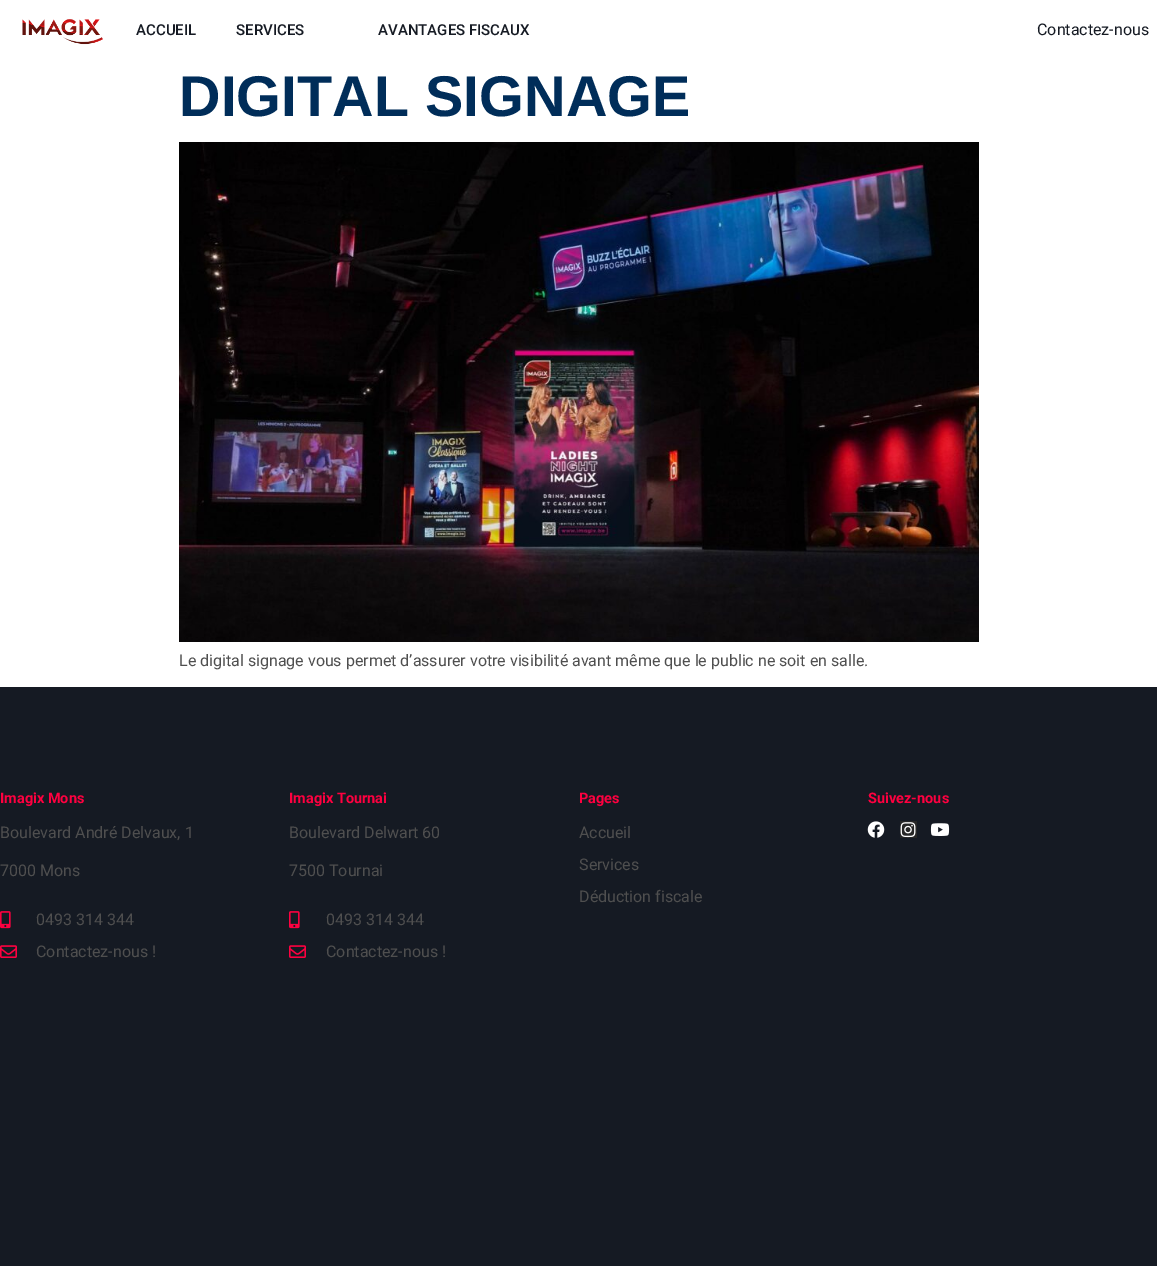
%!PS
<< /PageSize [1157 1266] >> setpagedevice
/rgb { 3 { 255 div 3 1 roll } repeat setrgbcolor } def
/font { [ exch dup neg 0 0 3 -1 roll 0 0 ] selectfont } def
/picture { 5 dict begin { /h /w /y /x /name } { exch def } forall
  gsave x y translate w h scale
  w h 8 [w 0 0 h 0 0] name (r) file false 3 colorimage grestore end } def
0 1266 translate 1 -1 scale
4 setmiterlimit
255 255 255 rgb
0 0 1157 1266 rectfill
(img/1.rgb) 22 19 81 26 picture
(img/2.rgb) 179 142 800 500 picture
21 26 35 rgb
0 687 1157 579 rectfill
(img/3.rgb) 0 911 11 18 picture
(img/4.rgb) 0 945 17 13 picture
(img/3.rgb) 289 911 11 18 picture
(img/4.rgb) 289 945 17 13 picture
(img/5.rgb) 867 821 18 17 picture
38 38 38 rgb
900 821 17 17 rectfill
(img/6.rgb) 900 822 16 16 picture
(img/7.rgb) 930 823 20 13 picture
/Roboto-Medium 15 font
21 26 35 rgb
[
  [(ACCUEIL) 136 35]
  [(SERVICES) 236 35]
  [(AVANTAGES FISCAUX) 378 35]
] { aload pop moveto show } forall
/Roboto-Regular 16 font
1037 35 moveto (Contactez-nous) show
/Arimo-Bold 57.5 font
0 45 89 rgb
179 116 moveto (DIGITAL SIGNAGE) show
/Roboto-Regular 16 font
79 79 79 rgb
179 666 moveto (Le digital signage vous permet d’assurer votre visibilité avant même que le public ne soit en salle.) show
/Roboto-Bold 14.5 font
255 0 64 rgb
0 803 moveto (Imagix Mons) show
/Roboto-Regular 16 font
79 79 79 rgb
[
  [(Boulevard André Delvaux, 1) 0 838]
  [(7000 Mons) 0 876]
  [(0493 314 344) 36 925]
  [(Contactez-nous !) 36 957]
] { aload pop moveto show } forall
/Roboto-Bold 14.5 font
255 0 64 rgb
289 803 moveto (Imagix Tournai) show
/Roboto-Regular 16 font
79 79 79 rgb
[
  [(Boulevard Delwart 60) 289 838]
  [(7500 Tournai) 289 876]
  [(0493 314 344) 326 925]
  [(Contactez-nous !) 326 957]
] { aload pop moveto show } forall
/Roboto-Bold 14.5 font
255 0 64 rgb
579 803 moveto (Pages) show
/Roboto-Regular 16 font
79 79 79 rgb
[
  [(Accueil) 579 838]
  [(Services) 579 870]
  [(Déduction fiscale) 579 902]
] { aload pop moveto show } forall
/Roboto-Bold 14.5 font
255 0 64 rgb
868 803 moveto (Suivez-nous) show
showpage
